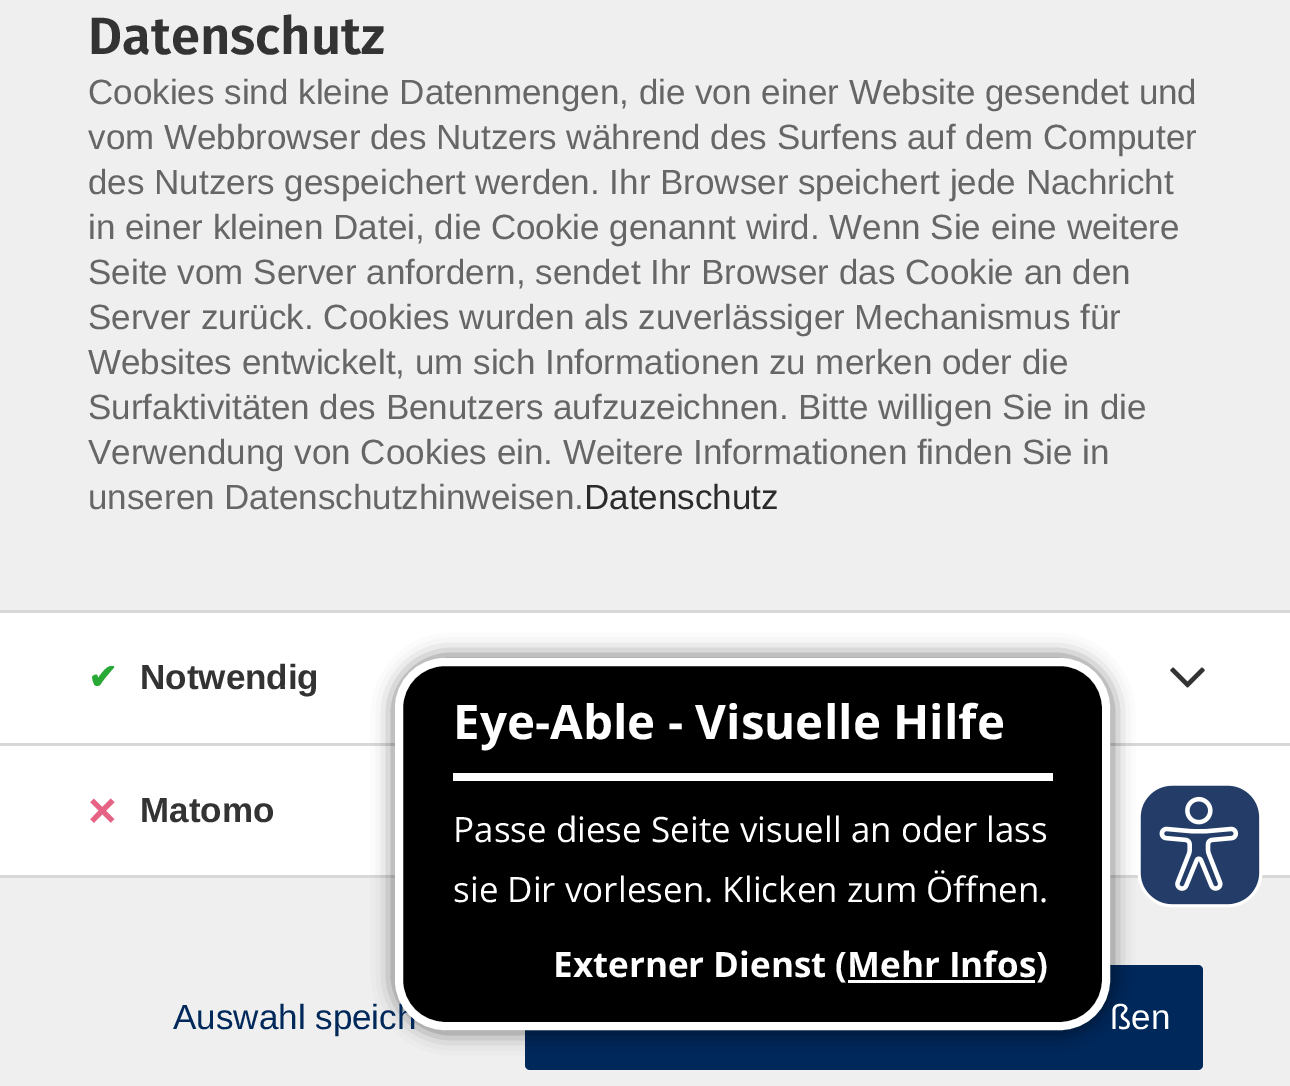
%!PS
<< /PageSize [1290 1086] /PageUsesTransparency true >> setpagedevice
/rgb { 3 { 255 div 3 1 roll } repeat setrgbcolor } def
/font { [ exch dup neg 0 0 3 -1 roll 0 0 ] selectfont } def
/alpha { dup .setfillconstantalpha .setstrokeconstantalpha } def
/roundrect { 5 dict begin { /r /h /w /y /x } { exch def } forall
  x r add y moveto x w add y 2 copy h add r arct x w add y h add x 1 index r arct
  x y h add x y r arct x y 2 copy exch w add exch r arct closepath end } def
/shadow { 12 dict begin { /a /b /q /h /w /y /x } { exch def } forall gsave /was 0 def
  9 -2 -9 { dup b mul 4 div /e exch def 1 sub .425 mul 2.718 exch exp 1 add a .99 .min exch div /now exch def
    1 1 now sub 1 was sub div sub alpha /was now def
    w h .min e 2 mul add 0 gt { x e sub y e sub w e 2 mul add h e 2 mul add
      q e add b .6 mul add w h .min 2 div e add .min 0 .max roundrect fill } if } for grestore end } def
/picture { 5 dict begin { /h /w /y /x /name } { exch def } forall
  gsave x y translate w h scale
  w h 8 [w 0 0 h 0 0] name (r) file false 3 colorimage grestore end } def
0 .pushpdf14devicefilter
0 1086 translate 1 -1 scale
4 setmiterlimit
239 239 239 rgb
0 0 1290 1086 rectfill
[
  [0 610 1290 3 216 216 216]
  [0 613 1290 262 255 255 255]
  [0 743 1290 3 216 216 216]
] { aload pop rgb rectfill } forall
(img/1.rgb) 1170 667 35 21 picture
0 875 1290 3 rectfill
0 40 90 rgb
525 965 678 105 5 roundrect fill
0 0 0 rgb
393 655 720 378 53 10 0.5 shadow
(img/2.rgb) 1138 785 125 123 picture
/FiraSans-SemiBold 52.5 font
51 51 51 rgb
88 54 moveto (Datenschutz) show
/LiberationSans-Regular 35 font
102 102 102 rgb
[
  [(Cookies sind kleine Datenmengen, die von einer Website gesendet und) 88 104]
  [(vom Webbrowser des Nutzers während des Surfens auf dem Computer) 88 149]
  [(des Nutzers gespeichert werden. Ihr Browser speichert jede Nachricht) 88 194]
  [(in einer kleinen Datei, die Cookie genannt wird. Wenn Sie eine weitere) 88 239]
  [(Seite vom Server anfordern, sendet Ihr Browser das Cookie an den) 88 284]
  [(Server zurück. Cookies wurden als zuverlässiger Mechanismus für) 88 329]
  [(Websites entwickelt, um sich Informationen zu merken oder die) 88 374]
  [(Surfaktivitäten des Benutzers aufzuzeichnen. Bitte willigen Sie in die) 88 419]
  [(Verwendung von Cookies ein. Weitere Informationen finden Sie in) 88 464]
  [(unseren Datenschutzhinweisen.) 88 509]
] { aload pop moveto show } forall
43 43 43 rgb
584 509 moveto (Datenschutz) show
/DejaVuSans-Bold 35 font
40 168 52 rgb
88 689 moveto (✔) show
/LiberationSans-Bold 35 font
51 51 51 rgb
140 689 moveto (Notwendig) show
/LiberationSans-Bold 49 font
229 99 133 rgb
88 827 moveto (×) show
/LiberationSans-Bold 35 font
51 51 51 rgb
140 822 moveto (Matomo) show
/LiberationSans-Regular 35 font
0 40 90 rgb
173 1029 moveto (Auswahl speich) show
255 255 255 rgb
1110 1029 moveto (ßen) show
0 0 0 rgb
399 662 707 364 46 roundrect gsave fill grestore
255 255 255 rgb
8 setlinewidth
stroke
453 773 600 8 rectfill
/OpenSans-Bold 47.5 font
453 739 moveto (Eye-Able - Visuelle Hilfe) show
/OpenSans-Regular 35 font
453 842 moveto (Passe diese Seite visuell an oder lass) show
453 902 moveto (sie Dir vorlesen. Klicken zum Öffnen.) show
/OpenSans-Bold 35 font
553 977 moveto (Externer Dienst \(Mehr Infos\)) show
848 980 187 3 rectfill
.poppdf14devicefilter showpage
